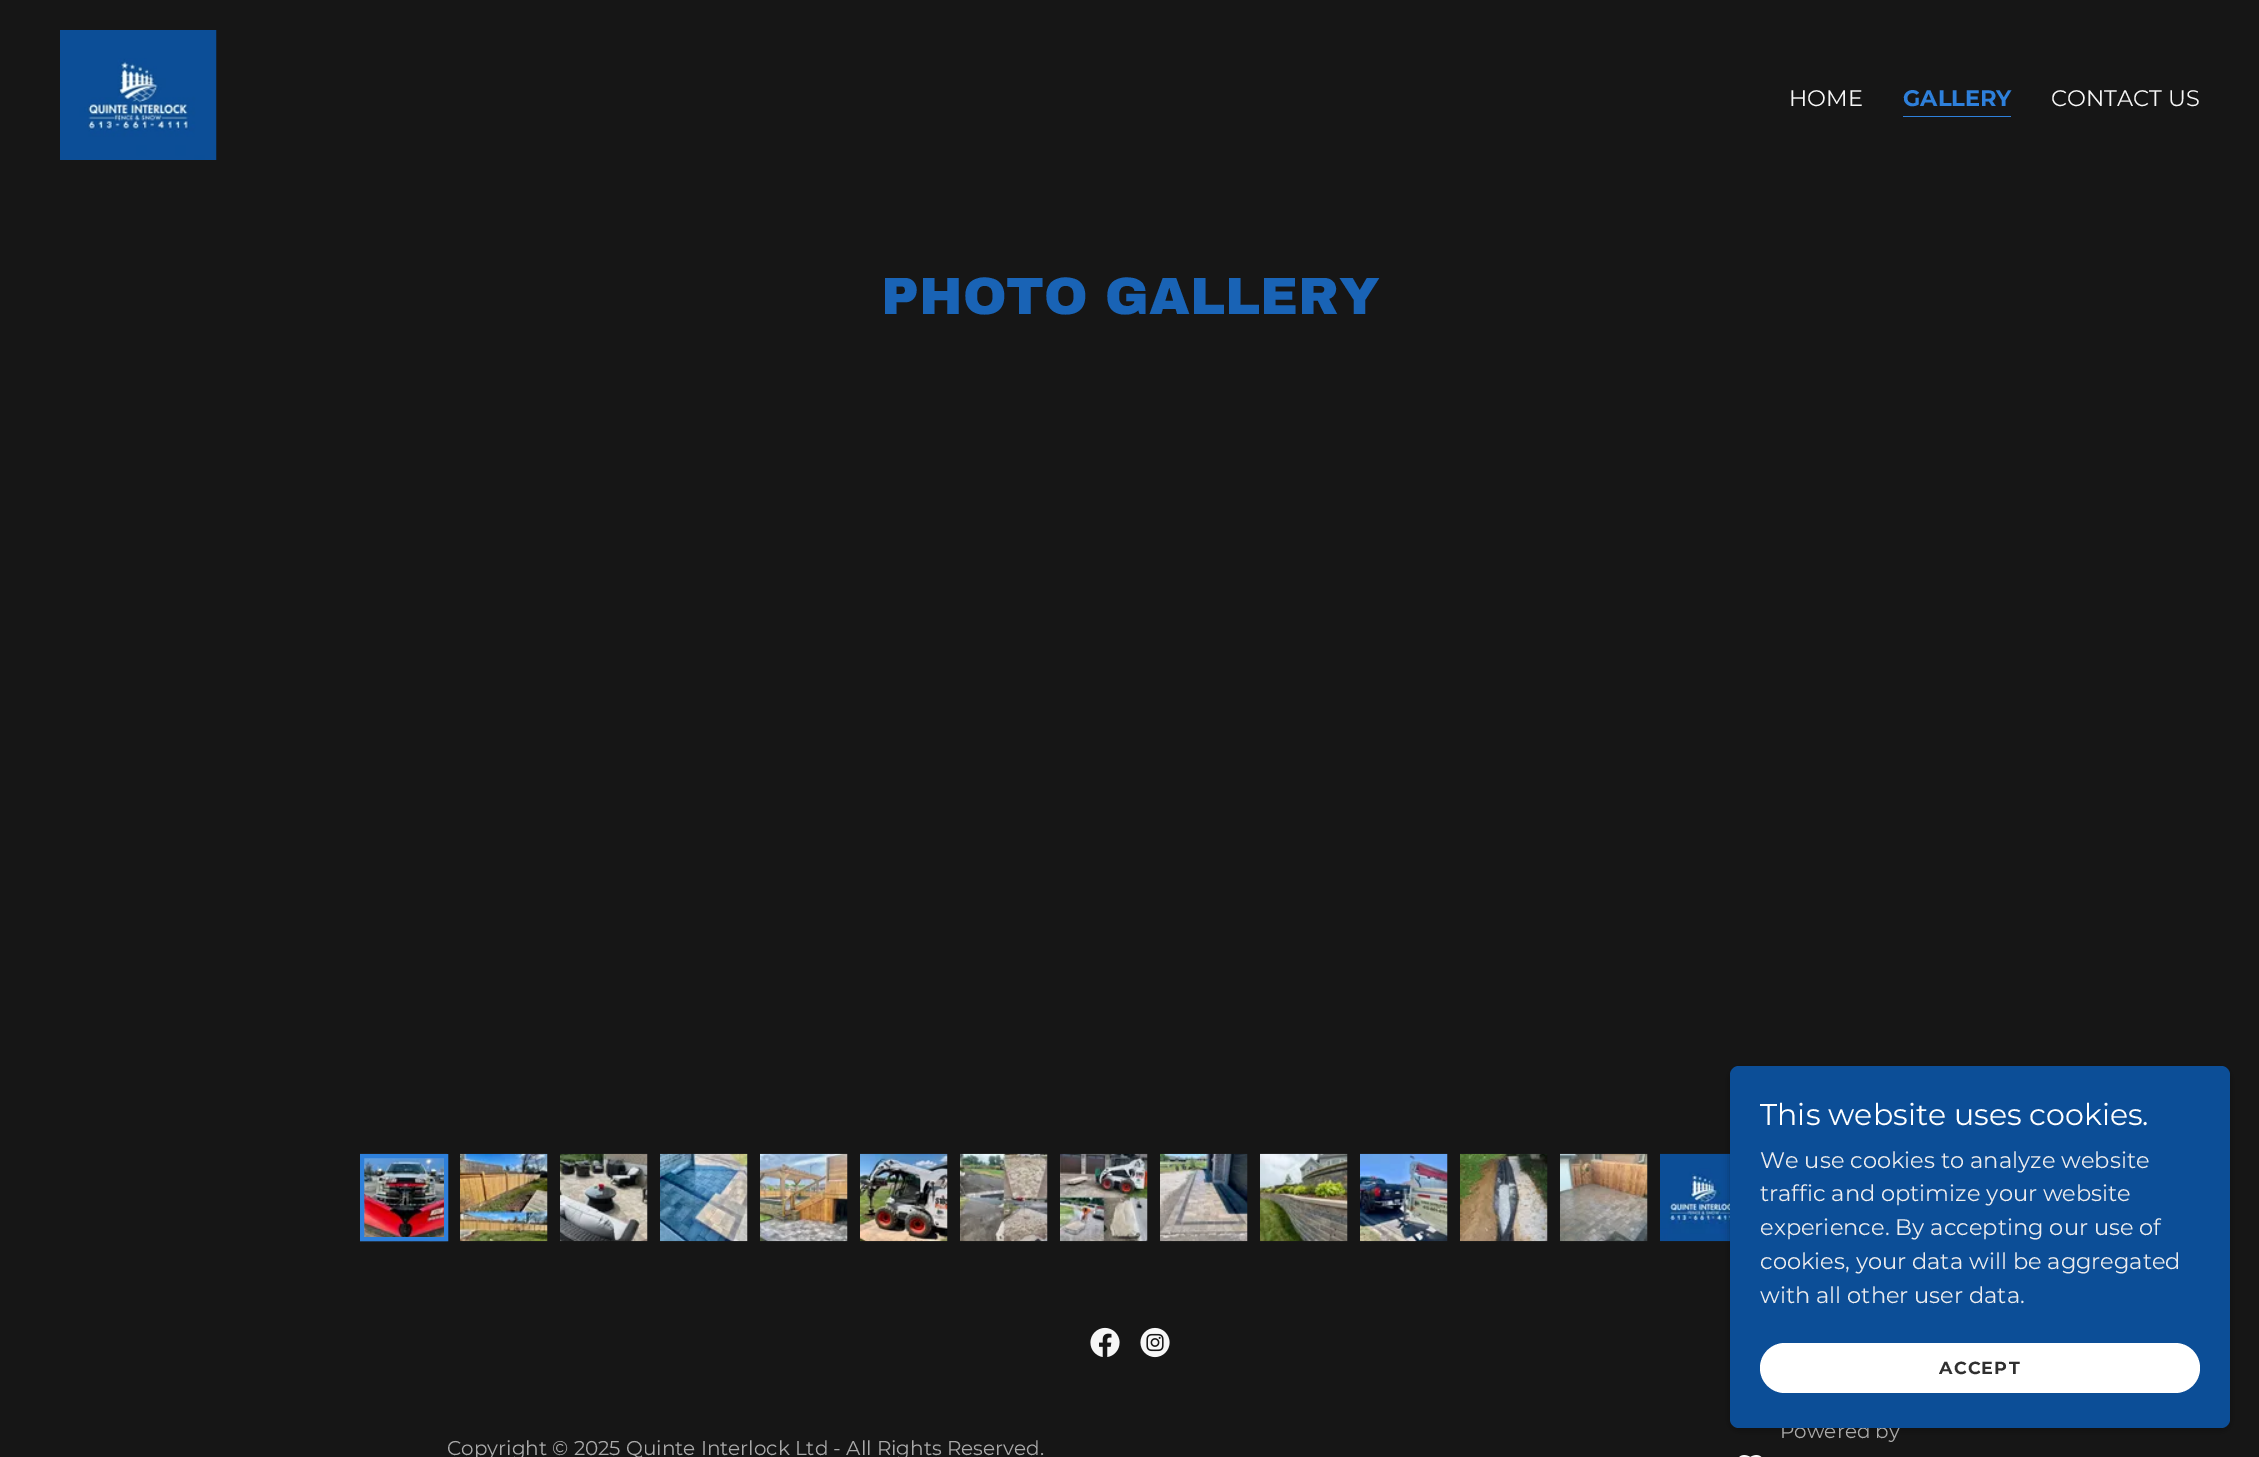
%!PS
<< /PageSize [2259 1457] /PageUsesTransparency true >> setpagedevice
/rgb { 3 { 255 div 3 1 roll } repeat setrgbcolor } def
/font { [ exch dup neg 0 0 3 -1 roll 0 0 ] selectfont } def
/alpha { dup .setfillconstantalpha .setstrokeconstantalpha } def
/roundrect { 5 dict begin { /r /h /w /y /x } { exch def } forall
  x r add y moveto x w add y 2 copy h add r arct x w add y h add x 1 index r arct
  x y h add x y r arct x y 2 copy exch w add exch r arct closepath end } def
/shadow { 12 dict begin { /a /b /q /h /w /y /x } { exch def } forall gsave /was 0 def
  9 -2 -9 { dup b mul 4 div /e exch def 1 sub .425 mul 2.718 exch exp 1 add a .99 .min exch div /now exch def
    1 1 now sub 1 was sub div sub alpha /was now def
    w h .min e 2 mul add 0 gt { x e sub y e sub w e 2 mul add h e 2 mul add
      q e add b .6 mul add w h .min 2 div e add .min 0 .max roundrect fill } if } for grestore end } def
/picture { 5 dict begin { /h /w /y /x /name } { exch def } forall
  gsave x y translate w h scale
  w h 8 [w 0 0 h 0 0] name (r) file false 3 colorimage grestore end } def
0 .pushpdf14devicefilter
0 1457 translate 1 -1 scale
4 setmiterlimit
22 22 22 rgb
0 0 2259 1457 rectfill
(img/1.rgb) 60 30 157 130 picture
46 128 219 rgb
1903 116 108 1 rectfill
(img/2.rgb) 360 1153 87 89 picture
4 setlinewidth
362 1156 84 83 rectstroke
(img/3.rgb) 460 1153 88 89 picture
(img/4.rgb) 560 1153 88 89 picture
(img/5.rgb) 660 1153 88 89 picture
(img/6.rgb) 760 1153 88 89 picture
(img/7.rgb) 860 1153 88 89 picture
(img/8.rgb) 960 1153 88 89 picture
(img/9.rgb) 1060 1153 88 89 picture
(img/10.rgb) 1160 1153 88 89 picture
(img/11.rgb) 1260 1153 88 89 picture
(img/12.rgb) 1360 1153 88 89 picture
(img/13.rgb) 1460 1153 88 89 picture
(img/14.rgb) 1560 1153 88 89 picture
(img/15.rgb) 1660 1153 70 89 picture
0 0 0 rgb
1730 1069 500 361 9 4 0.3 shadow
(img/16.rgb) 1090 1327 30 30 picture
(img/17.rgb) 1140 1327 30 31 picture
(img/18.rgb) 1739 1455 23 2 picture
/Montserrat-Regular 22.5 font
247 247 247 rgb
1789 106 moveto (HOME) show
/Montserrat-Bold 22.5 font
46 128 219 rgb
1903 106 moveto (GALLERY) show
/Montserrat-Regular 22.5 font
247 247 247 rgb
2051 106 moveto (CONTACT US) show
/ArchivoBlack-Black 52.5 font
25 99 181 rgb
881 314 moveto (PHOTO GALLERY) show
/Montserrat-Regular 20 font
169 169 169 rgb
1780 1438 moveto (Powered by) show
12 78 151 rgb
1730 1066 500 362 9 roundrect fill
255 255 255 rgb
1760 1343 440 50 25 roundrect fill
/Montserrat-Bold 17.5 font
48 48 48 rgb
1939 1374 moveto 1.25 0 (ACCEPT) ashow
/Montserrat-Regular 22.5 font
236 236 238 rgb
[
  [(with all other user data.) 1760 1303]
  [(cookies, your data will be aggregated) 1760 1269]
  [(experience. By accepting our use of) 1760 1235]
  [(traffic and optimize your website) 1760 1201]
  [(We use cookies to analyze website) 1760 1168]
] { aload pop moveto show } forall
/Montserrat-Regular 30 font
255 255 255 rgb
1760 1125 moveto (This website uses cookies.) show
/Montserrat-Regular 20 font
169 169 169 rgb
447 1455 moveto (Copyright © 2025 Quinte Interlock Ltd - All Rights Reserved.) show
.poppdf14devicefilter showpage
